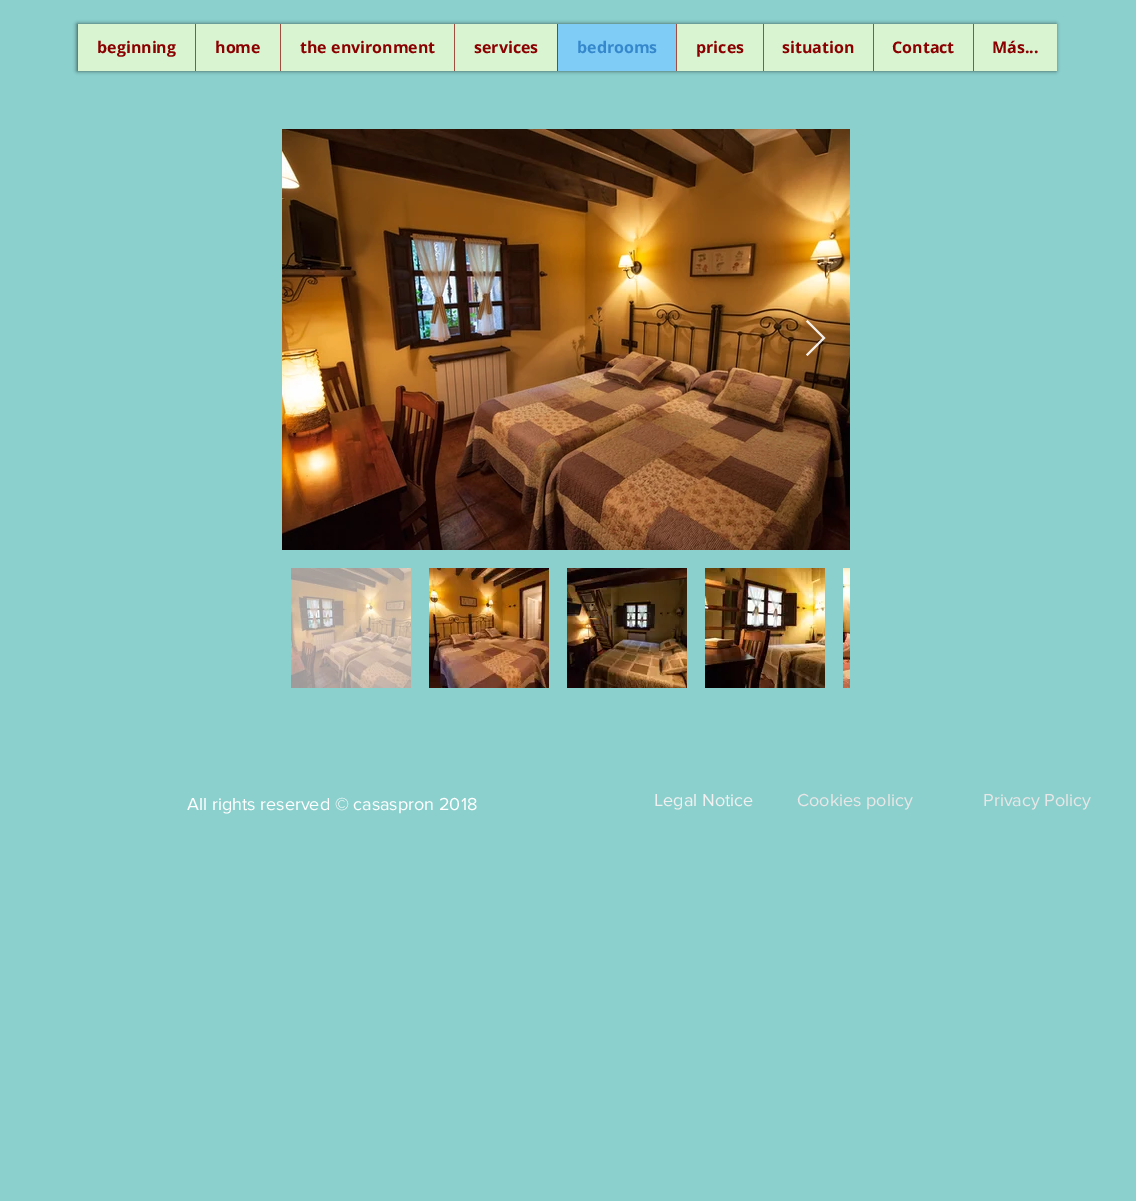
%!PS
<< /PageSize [1136 1201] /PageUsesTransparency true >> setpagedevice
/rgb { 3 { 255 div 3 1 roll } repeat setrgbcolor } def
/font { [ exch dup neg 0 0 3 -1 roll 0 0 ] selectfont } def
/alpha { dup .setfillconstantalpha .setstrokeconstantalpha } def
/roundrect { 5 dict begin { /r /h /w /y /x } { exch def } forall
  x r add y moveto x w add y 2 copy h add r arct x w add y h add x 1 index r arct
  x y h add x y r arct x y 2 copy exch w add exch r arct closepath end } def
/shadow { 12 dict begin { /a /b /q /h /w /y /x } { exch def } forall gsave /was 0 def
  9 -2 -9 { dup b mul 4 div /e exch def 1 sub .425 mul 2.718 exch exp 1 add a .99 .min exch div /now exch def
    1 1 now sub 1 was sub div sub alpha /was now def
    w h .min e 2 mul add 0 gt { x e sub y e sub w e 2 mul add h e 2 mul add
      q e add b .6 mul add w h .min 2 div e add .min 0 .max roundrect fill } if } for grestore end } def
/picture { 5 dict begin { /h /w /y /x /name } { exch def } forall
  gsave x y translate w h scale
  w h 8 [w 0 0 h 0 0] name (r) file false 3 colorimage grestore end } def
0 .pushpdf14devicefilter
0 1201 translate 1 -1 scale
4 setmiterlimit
139 208 205 rgb
0 0 1136 1201 rectfill
0 0 0 rgb
77 24 979 47 0 2 0.6 shadow
[
  [78 24 979 47 216 244 208]
  [195 24 1 47 163 76 64]
  [280 24 1 47 163 76 64]
  [454 24 1 47 163 76 64]
  [558 24 118 47 127 204 247]
  [557 24 1 47 135 63 77]
  [676 24 1 47 163 76 64]
  [763 24 1 47 163 76 64]
  [873 24 1 47 163 76 64]
  [973 24 1 47 163 76 64]
] { aload pop rgb rectfill } forall
(img/1.rgb) 282 129 568 421 picture
0.9 alpha
255 255 255 rgb
806 321.5 moveto 807.5 320 lineto 825.5 338 lineto 807.5 356 lineto 806 354.5 lineto 822.5 338 lineto closepath fill
1 alpha
(img/2.rgb) 291 568 120 120 picture
(img/3.rgb) 429 568 120 120 picture
(img/4.rgb) 567 568 120 120 picture
(img/5.rgb) 705 568 120 120 picture
(img/6.rgb) 843 568 7 120 picture
/OpenSans-Bold 16 font
139 0 0 rgb
[
  [(beginning) 97 53]
  [(home) 215 53]
  [(the environment) 300 53]
  [(services) 474 53]
] { aload pop moveto show } forall
53 136 204 rgb
577 53 moveto (bedrooms) show
139 0 0 rgb
[
  [(prices) 696 53]
  [(situation) 782 53]
  [(Contact) 892 53]
  [(Más...) 992 53]
] { aload pop moveto show } forall
/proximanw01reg-Regular 18 font
255 255 255 rgb
187 810 moveto (All rights reserved © casaspron 2018) show
240 240 240 rgb
654 806 moveto (Legal Notice) show
232 230 230 rgb
797 806 moveto (Cookies policy) show
983 806 moveto (Privacy Policy) show
.poppdf14devicefilter showpage
